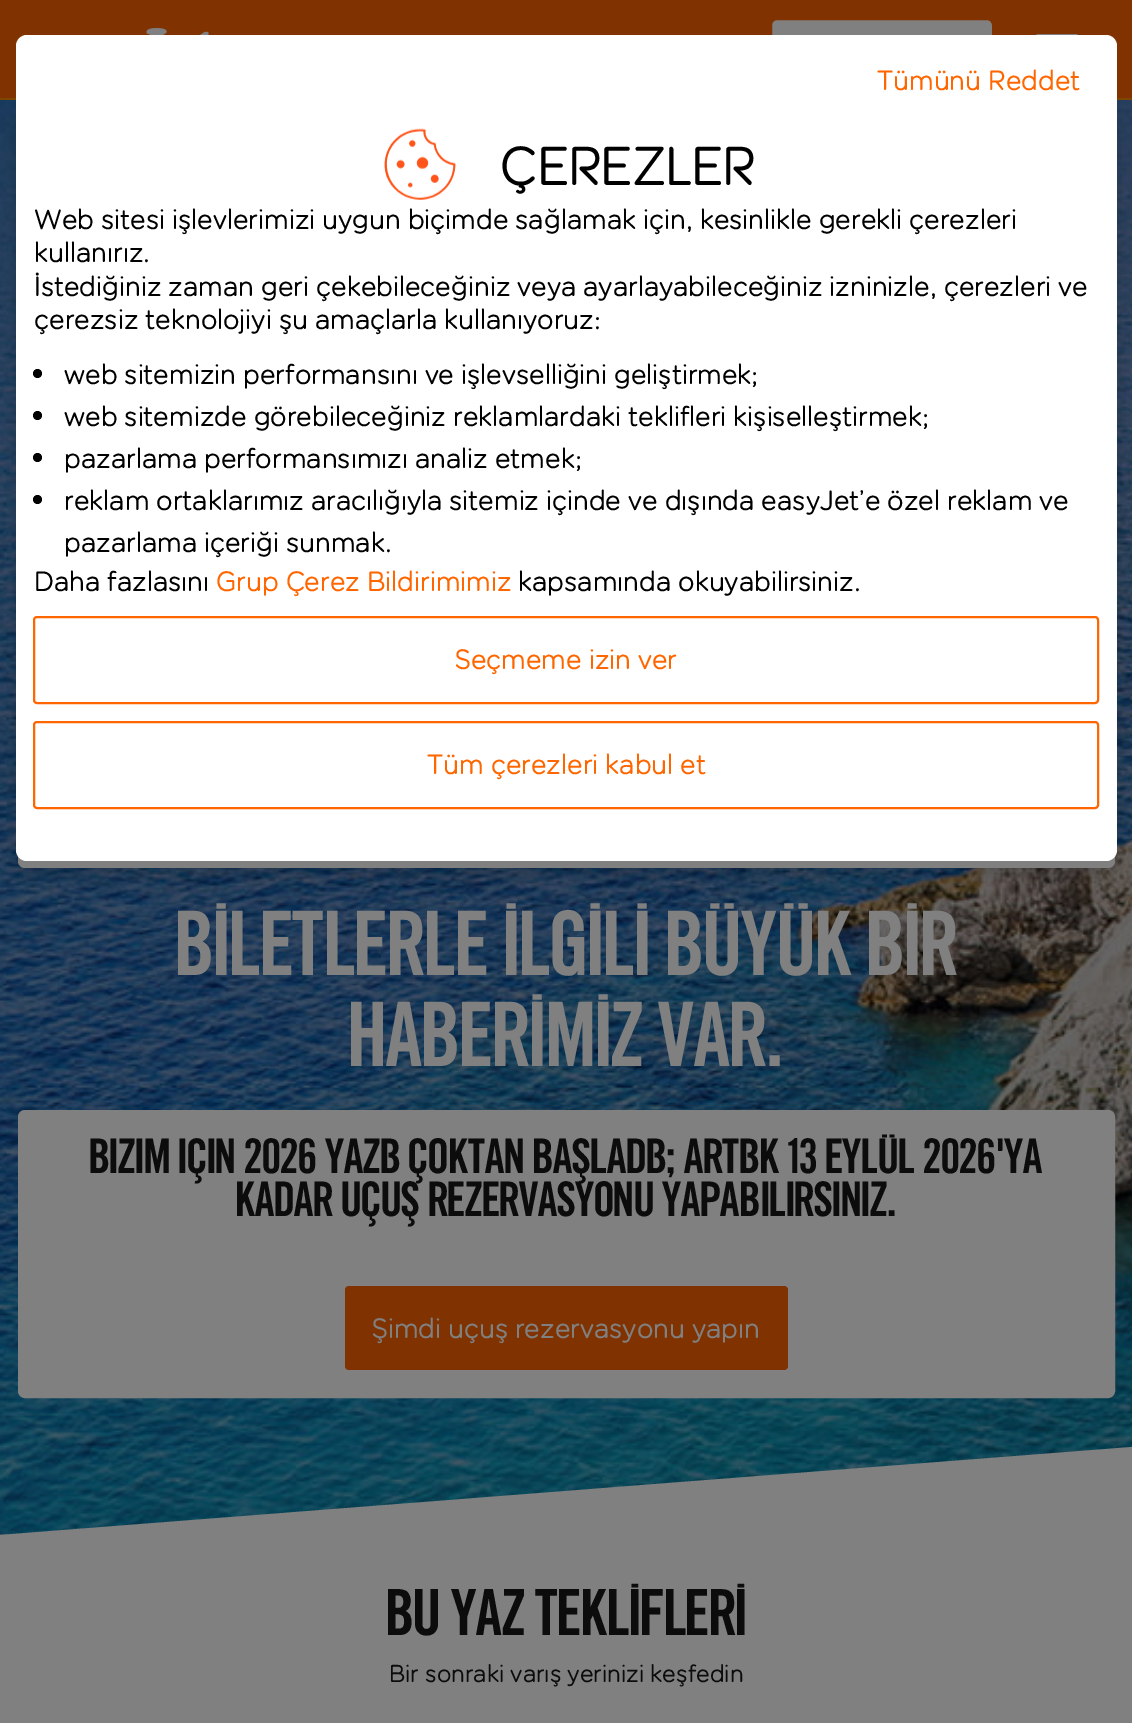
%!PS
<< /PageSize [1132 1723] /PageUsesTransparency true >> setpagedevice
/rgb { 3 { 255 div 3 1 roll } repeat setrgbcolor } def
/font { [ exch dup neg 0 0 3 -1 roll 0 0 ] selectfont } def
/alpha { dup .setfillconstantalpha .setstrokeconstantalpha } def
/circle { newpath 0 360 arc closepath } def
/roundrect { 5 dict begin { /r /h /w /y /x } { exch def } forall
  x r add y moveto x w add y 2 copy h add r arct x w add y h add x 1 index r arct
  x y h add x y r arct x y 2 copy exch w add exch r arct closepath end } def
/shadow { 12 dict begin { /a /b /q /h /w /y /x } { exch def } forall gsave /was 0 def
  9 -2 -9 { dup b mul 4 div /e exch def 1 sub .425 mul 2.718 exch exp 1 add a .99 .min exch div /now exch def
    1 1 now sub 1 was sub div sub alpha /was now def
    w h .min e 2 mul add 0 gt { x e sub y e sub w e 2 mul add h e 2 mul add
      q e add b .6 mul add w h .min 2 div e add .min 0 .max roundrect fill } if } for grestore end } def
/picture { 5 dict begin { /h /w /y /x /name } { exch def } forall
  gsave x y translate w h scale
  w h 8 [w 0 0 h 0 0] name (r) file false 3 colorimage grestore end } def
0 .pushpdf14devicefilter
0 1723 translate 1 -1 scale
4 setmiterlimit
255 255 255 rgb
0 0 1132 1723 rectfill
(img/3.rgb) 0 100 1132 1435 picture
0 0 0 rgb
18 121 1097 751 7 9 0.2 shadow
128 51 0 rgb
0 0 1132 98 rectfill
127 70 0 rgb
0 98 1132 2 rectfill
128 128 128 rgb
771 19 222 61 6 roundrect gsave fill grestore
128 51 0 rgb
2 setlinewidth
stroke
128 128 128 rgb
1036 34 42 4 2 roundrect fill
18 117 1097 751 7 roundrect fill
255 255 255 rgb
16 35 1101 826 11 roundrect fill
(img/1.rgb) 384 128 72 72 picture
0 0 0 rgb
37.5 373.5 4.5 circle fill
37.5 415.5 4.5 circle fill
37.5 457.5 4.5 circle fill
37.5 499.5 4.5 circle fill
255 102 0 rgb
34 617 1064 86 3 roundrect stroke
34 722 1064 86 3 roundrect stroke
(img/2.rgb) 146 28 63 7 picture
128 128 128 rgb
19 1111 1095 286 6 roundrect gsave fill grestore
stroke
128 51 0 rgb
345 1286 443 84 4 roundrect fill
128 128 128 rgb
0 1535 moveto 0 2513 lineto 1132 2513 lineto 1132 1447 lineto closepath fill
/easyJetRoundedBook-Regular 28 font
255 102 0 rgb
877 90 moveto (Tümünü Reddet) show
/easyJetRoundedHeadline-Bold 52.5 font
0 0 0 rgb
499 185 moveto (ÇEREZLER) show
/easyJetRoundedBook-Regular 28 font
[
  [(Web sitesi işlevlerimizi uygun biçimde sağlamak için, kesinlikle gerekli çerezleri) 34 229]
  [(kullanırız.) 34 262]
  [(İstediğiniz zaman geri çekebileceğiniz veya ayarlayabileceğiniz izninizle, çerezleri ve) 34 296]
  [(çerezsiz teknolojiyi şu amaçlarla kullanıyoruz:) 34 329]
  [(web sitemizin performansını ve işlevselliğini geliştirmek;) 64 384]
  [(web sitemizde görebileceğiniz reklamlardaki teklifleri kişiselleştirmek;) 64 426]
  [(pazarlama performansımızı analiz etmek;) 64 468]
  [(reklam ortaklarımız aracılığıyla sitemiz içinde ve dışında easyJet’e özel reklam ve) 64 510]
  [(pazarlama içeriği sunmak.) 64 552]
  [(Daha fazlasını) 34 591]
] { aload pop moveto show } forall
255 102 0 rgb
216 591 moveto (Grup Çerez Bildirimimiz) show
0 0 0 rgb
518 591 moveto (kapsamında okuyabilirsiniz.) show
255 102 0 rgb
455 669 moveto (Seçmeme izin ver) show
427 774 moveto (Tüm çerezleri kabul et) show
/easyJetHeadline-Regular 98 font
128 128 128 rgb
175 975 moveto (BİLETLERLE İLGİLİ BÜYÜK BİR) show
348 1066 moveto (HABERİMİZ VAR.) show
/easyJetHeadline-Regular 52.5 font
12 12 12 rgb
89 1173 moveto (Bizim için 2026 yazı çoktan başladı; Artık 13 Eylül 2026'ya) show
235 1216 moveto (kadar uçuş rezervasyonu yapabilirsiniz.) show
/easyJetRoundedBook-Regular 28 font
128 128 128 rgb
372 1338 moveto (Şimdi uçuş rezervasyonu yapın) show
/easyJetHeadline-Regular 70 font
12 12 12 rgb
386 1635 moveto (BU YAZ TEKLİFLERİ) show
/easyJetRoundedBook-Regular 24.5 font
389 1682 moveto (Bir sonraki varış yerinizi keşfedin) show
.poppdf14devicefilter showpage
